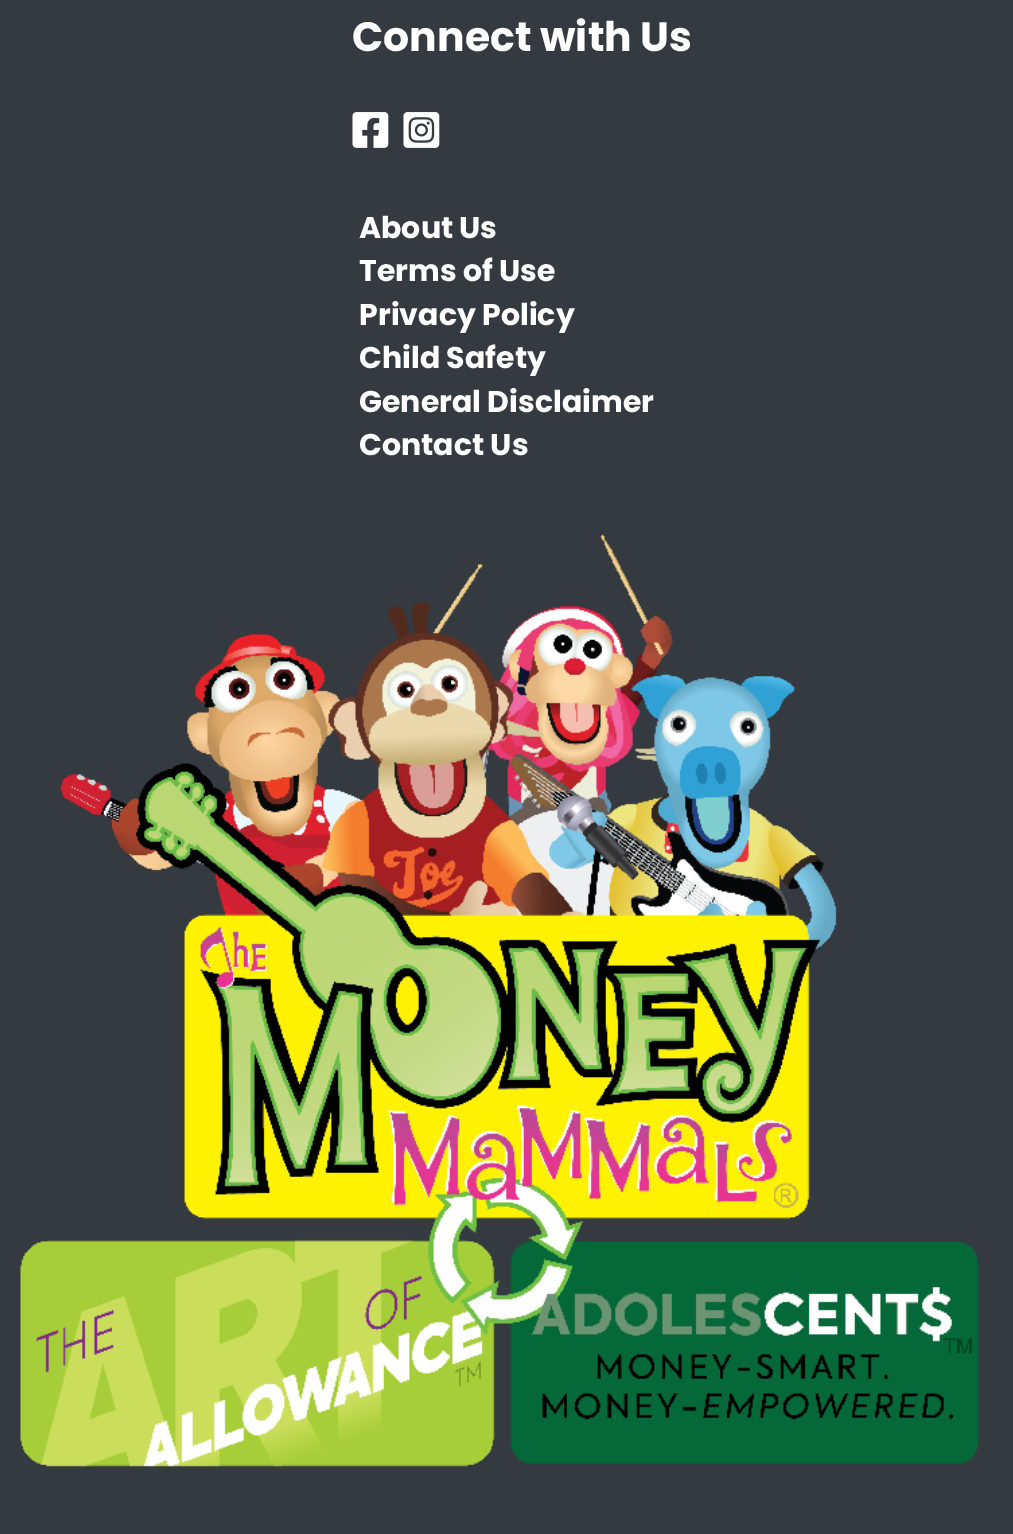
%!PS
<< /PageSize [1013 1534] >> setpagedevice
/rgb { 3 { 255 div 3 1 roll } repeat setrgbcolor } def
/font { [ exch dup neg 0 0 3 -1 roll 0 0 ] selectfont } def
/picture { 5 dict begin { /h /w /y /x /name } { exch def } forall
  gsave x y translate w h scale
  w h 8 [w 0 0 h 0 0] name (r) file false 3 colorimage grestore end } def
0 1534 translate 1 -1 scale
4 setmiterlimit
52 58 64 rgb
0 0 1013 1534 rectfill
(img/1.rgb) 352 112 37 36 picture
(img/2.rgb) 403 112 37 36 picture
(img/3.rgb) 20 534 959 933 picture
/Poppins-Bold 41 font
255 255 255 rgb
352 51 moveto (Connect with Us) show
/Poppins-Bold 30 font
[
  [(About Us) 359 238]
  [(Terms of Use) 359 281]
  [(Privacy Policy) 359 325]
  [(Child Safety) 359 368]
  [(General Disclaimer) 359 412]
  [(Contact Us) 359 455]
] { aload pop moveto show } forall
showpage
